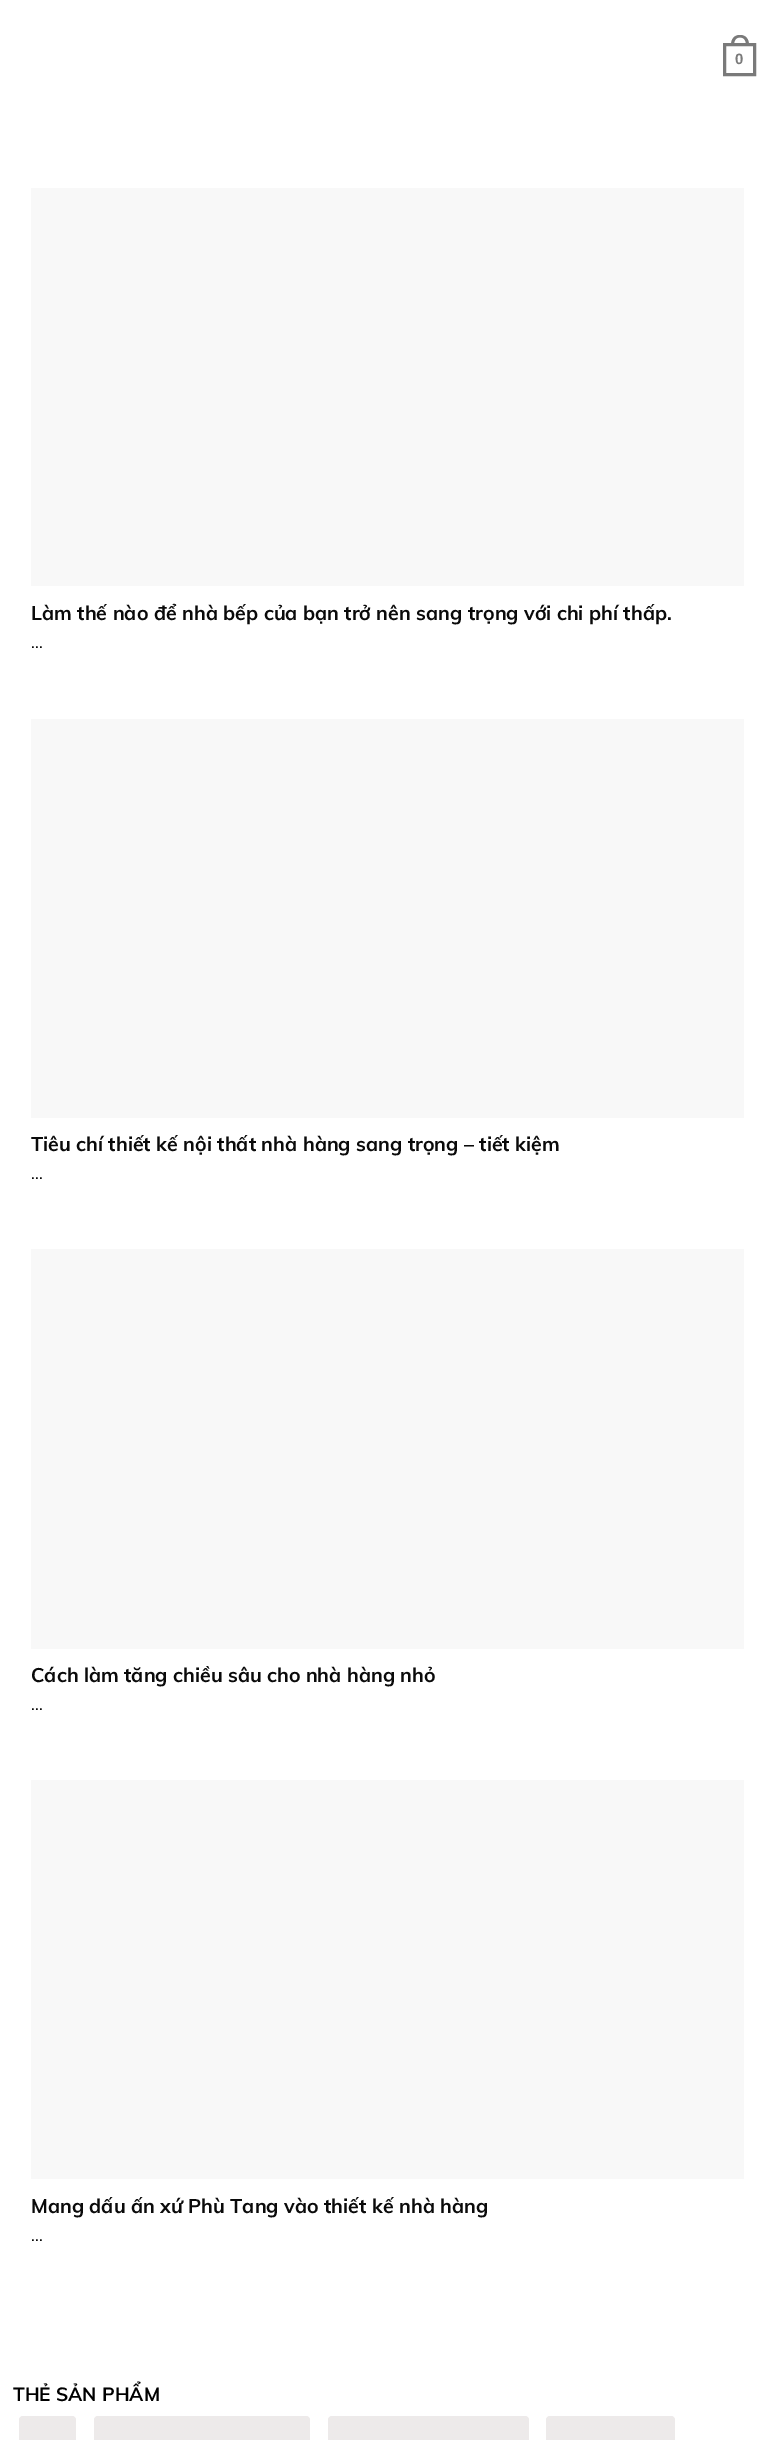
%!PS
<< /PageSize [775 2440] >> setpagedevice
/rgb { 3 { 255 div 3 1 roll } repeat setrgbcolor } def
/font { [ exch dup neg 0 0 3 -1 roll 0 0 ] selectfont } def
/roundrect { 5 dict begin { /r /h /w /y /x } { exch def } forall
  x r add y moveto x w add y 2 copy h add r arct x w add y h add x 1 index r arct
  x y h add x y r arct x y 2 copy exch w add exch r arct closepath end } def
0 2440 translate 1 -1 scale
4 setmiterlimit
255 255 255 rgb
0 0 775 2440 rectfill
122 122 122 rgb
3 setlinewidth
724.5 44.5 30 30 rectstroke
740 35 moveto 746 35 749 39.5 749 45 curveto 731 45 lineto 731 39.5 734 35 740 35 curveto closepath 740 37.5 moveto 744.5 37.5 746 41 746 45 curveto 734 45 lineto 734 41 735.5 37.5 740 37.5 curveto closepath eofill
[
  [31 188 713 398 248 248 248]
  [31 719 713 399 248 248 248]
  [31 1249 713 400 248 248 248]
  [31 1780 713 399 248 248 248]
] { aload pop rgb rectfill } forall
237 234 234 rgb
19 2416 57 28 4 roundrect fill
94 2416 216 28 4 roundrect fill
328 2416 201 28 4 roundrect fill
546 2416 129 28 4 roundrect fill
/LiberationSans-Bold 15 font
122 122 122 rgb
735 64 moveto (0) show
/Muli-Bold 19.65 font
10 10 10 rgb
31 620 moveto (Làm thế nào để nhà bếp của bạn trở nên sang trọng với chi phí thấp.) show
/Muli-Regular 17 font
31 648 moveto (...) show
/Muli-Bold 19.65 font
31 1151 moveto (Tiêu chí thiết kế nội thất nhà hàng sang trọng – tiết kiệm) show
/Muli-Regular 17 font
31 1179 moveto (...) show
/Muli-Bold 19.65 font
31 1682 moveto (Cách làm tăng chiều sâu cho nhà hàng nhỏ) show
/Muli-Regular 17 font
31 1710 moveto (...) show
/Muli-Bold 19.65 font
31 2213 moveto (Mang dấu ấn xứ Phù Tang vào thiết kế nhà hàng) show
/Muli-Regular 17 font
31 2241 moveto (...) show
/Muli-Bold 19 font
0 0 0 rgb
13 2401 moveto (THẺ SẢN PHẨM) show
showpage
